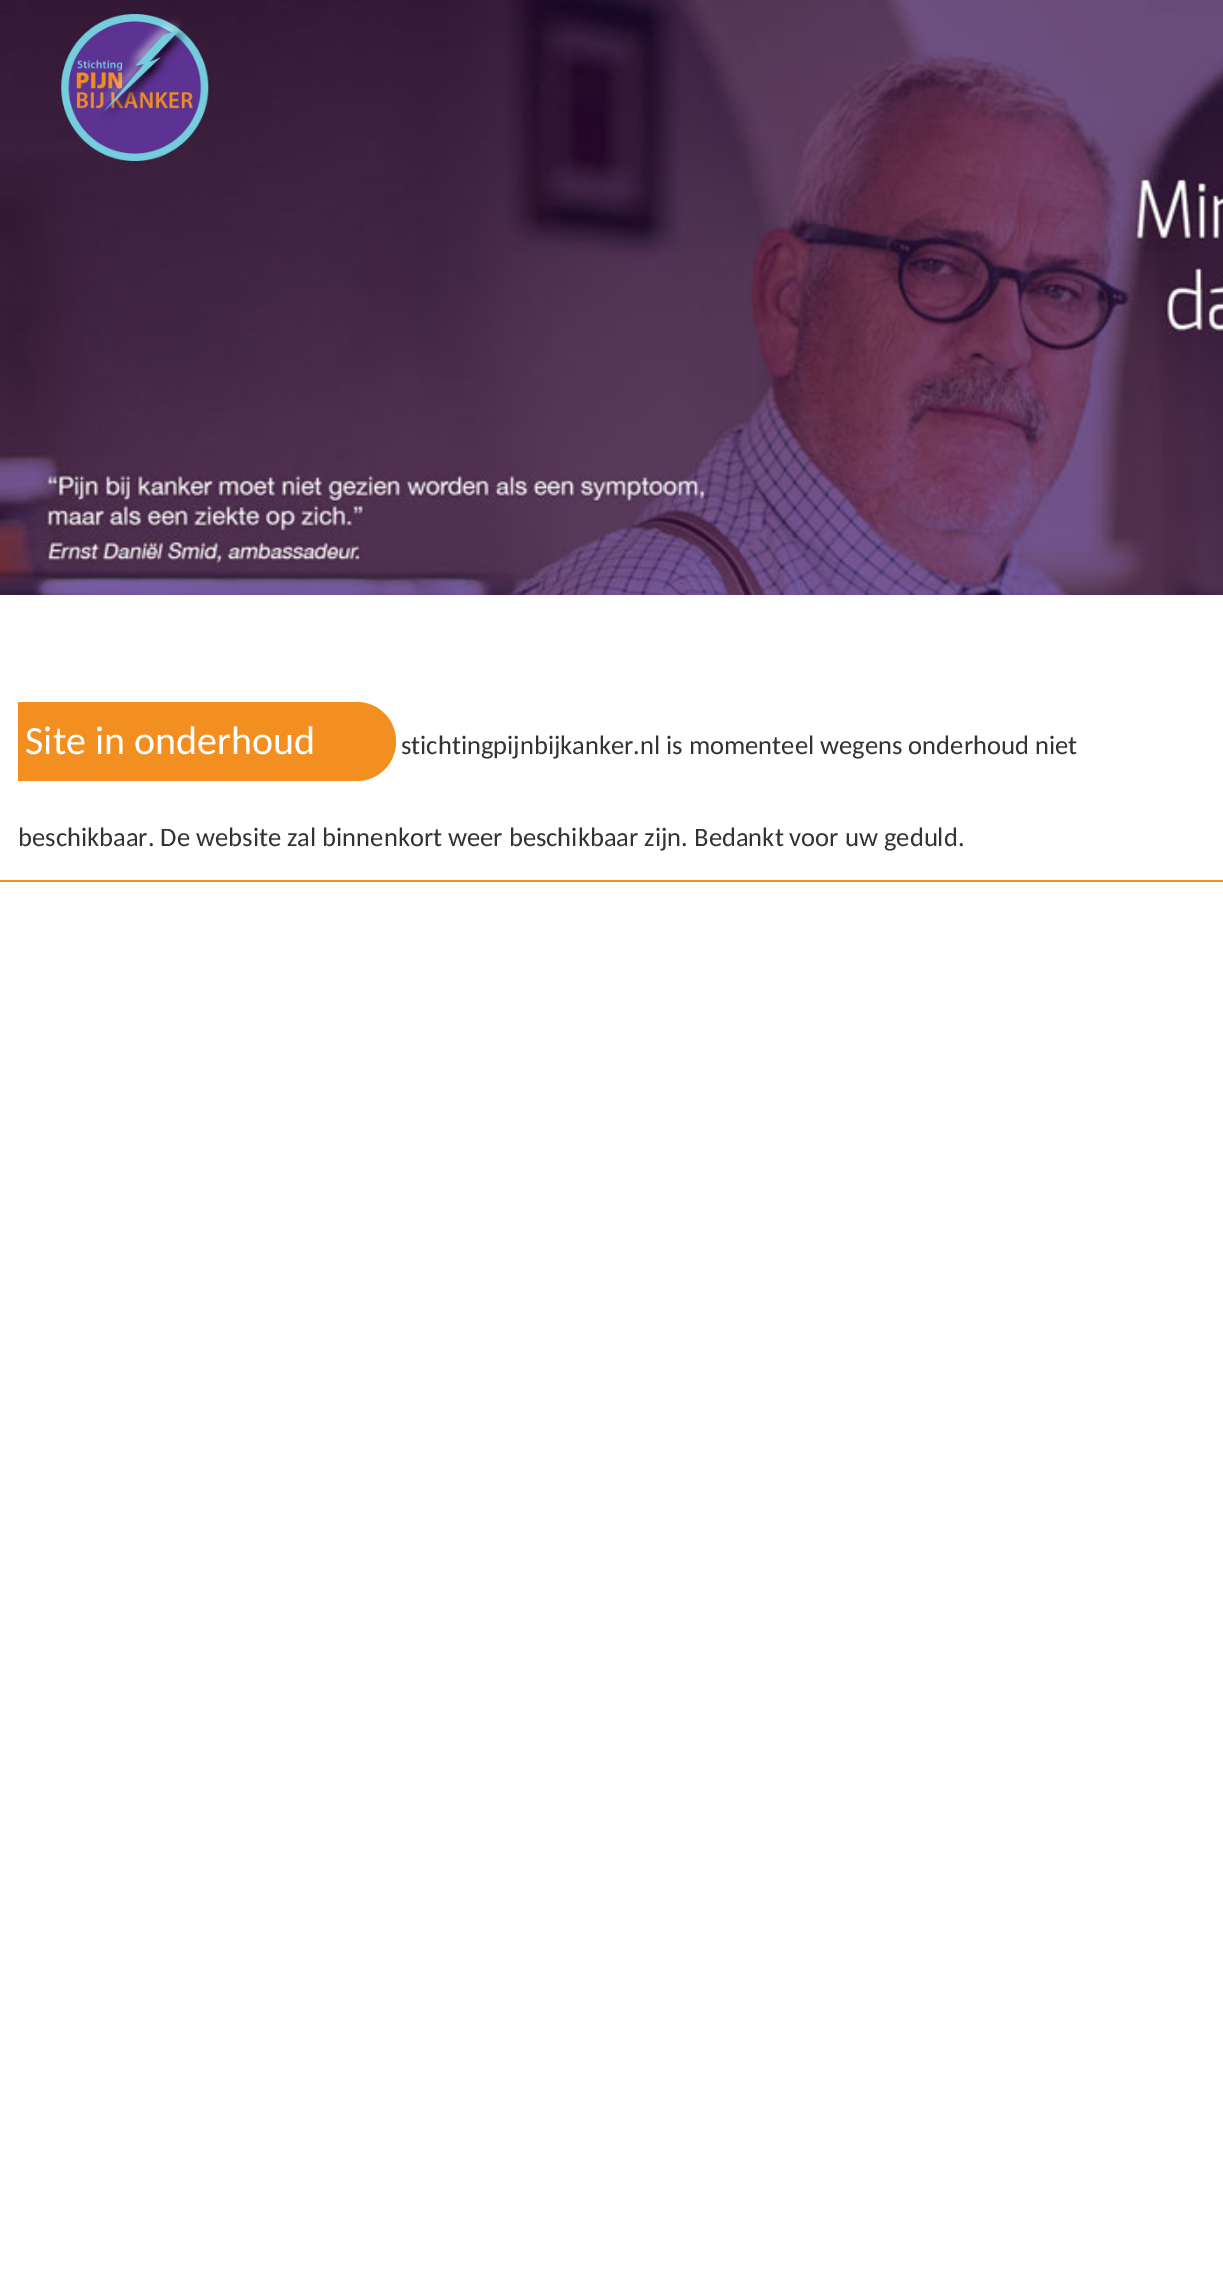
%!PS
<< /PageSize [1223 2279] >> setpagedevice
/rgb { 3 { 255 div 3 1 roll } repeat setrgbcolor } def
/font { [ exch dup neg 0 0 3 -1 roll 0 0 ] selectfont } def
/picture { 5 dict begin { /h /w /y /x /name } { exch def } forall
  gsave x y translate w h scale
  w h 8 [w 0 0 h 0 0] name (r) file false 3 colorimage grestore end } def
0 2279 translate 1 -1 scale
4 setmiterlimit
255 255 255 rgb
0 0 1223 2279 rectfill
(img/1.rgb) 0 0 1223 595 picture
(img/2.rgb) 61 14 148 147 picture
243 143 32 rgb
18 702 moveto 356.5 702 lineto 378.5 702 396 719.5 396 741.5 curveto 396 763.5 378.5 781 356.5 781 curveto 18 781 lineto closepath fill
0 880 1223 2 rectfill
/Carlito-Regular 40 font
255 255 255 rgb
25 754 moveto (Site in onderhoud) show
/Carlito-Regular 26.6 font
51 51 51 rgb
401 754 moveto (stichtingpijnbijkanker.nl is momenteel wegens onderhoud niet) show
18 846 moveto (beschikbaar. De website zal binnenkort weer beschikbaar zijn. Bedankt voor uw geduld.) show
showpage
